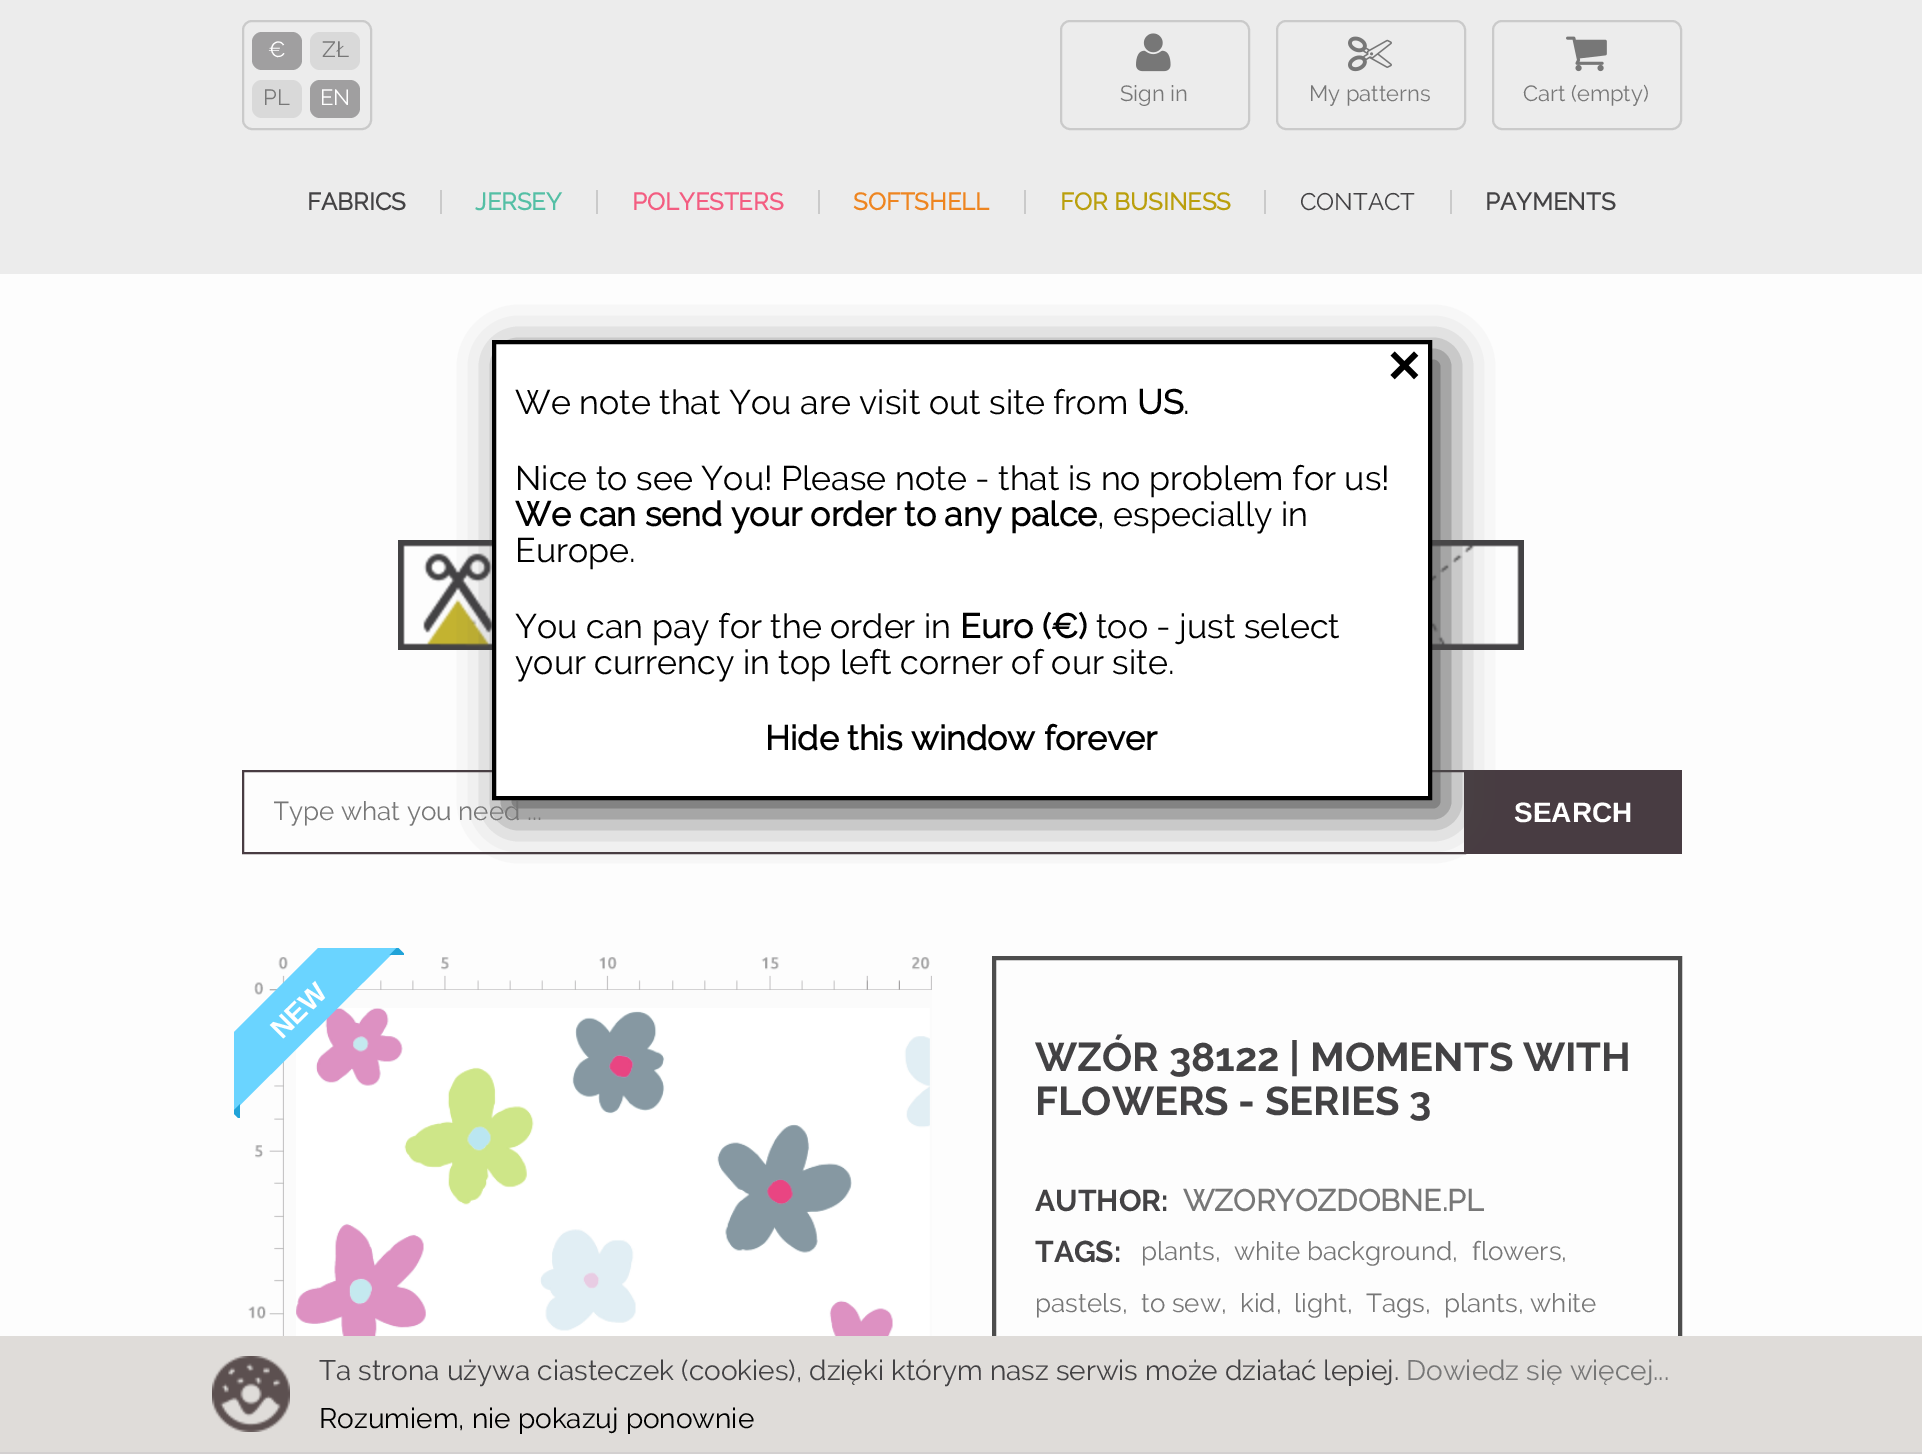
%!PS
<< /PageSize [1922 1454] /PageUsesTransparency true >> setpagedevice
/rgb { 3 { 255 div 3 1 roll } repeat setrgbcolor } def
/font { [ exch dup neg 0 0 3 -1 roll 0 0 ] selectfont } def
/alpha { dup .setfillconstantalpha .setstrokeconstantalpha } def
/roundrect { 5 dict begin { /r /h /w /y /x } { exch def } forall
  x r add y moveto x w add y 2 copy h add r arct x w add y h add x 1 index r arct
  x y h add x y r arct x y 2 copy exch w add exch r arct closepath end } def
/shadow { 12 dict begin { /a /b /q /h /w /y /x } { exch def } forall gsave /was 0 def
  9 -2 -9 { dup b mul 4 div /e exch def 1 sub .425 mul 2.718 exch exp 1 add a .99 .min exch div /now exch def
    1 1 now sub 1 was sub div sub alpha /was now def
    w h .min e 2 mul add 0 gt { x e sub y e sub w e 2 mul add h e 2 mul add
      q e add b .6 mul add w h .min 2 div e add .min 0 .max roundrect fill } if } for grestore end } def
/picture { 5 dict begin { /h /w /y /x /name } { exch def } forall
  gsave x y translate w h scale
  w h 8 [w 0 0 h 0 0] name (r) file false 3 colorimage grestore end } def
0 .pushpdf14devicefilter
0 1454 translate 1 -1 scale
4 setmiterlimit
253 253 253 rgb
0 0 1922 1454 rectfill
236 236 236 rgb
0 0 1922 274 rectfill
202 202 202 rgb
2 setlinewidth
243 21 128 108 9 roundrect stroke
160 159 160 rgb
252 32 50 38 10 roundrect fill
217 217 217 rgb
310 32 50 38 10 roundrect fill
252 80 50 38 10 roundrect fill
160 159 160 rgb
310 80 50 38 10 roundrect fill
202 202 202 rgb
1061 21 188 108 9 roundrect stroke
(img/1.rgb) 1136 33 35 39 picture
1277 21 188 108 9 roundrect stroke
(img/2.rgb) 1348 36 44 36 picture
1493 21 188 108 9 roundrect stroke
(img/3.rgb) 1566 36 41 36 picture
[
  [440 190 2 24 202 202 202]
  [596 190 2 24 202 202 202]
  [818 190 2 24 202 202 202]
  [1024 190 2 24 202 202 202]
  [1264 190 2 24 202 202 202]
  [1450 190 2 24 202 202 202]
] { aload pop rgb rectfill } forall
(img/4.rgb) 398 540 94 110 picture
(img/5.rgb) 1432 540 92 110 picture
72 60 66 rgb
243 771 1222 82 rectstroke
1466 770 216 84 rectfill
(img/6.rgb) 248 957 684 379 picture
251 251 251 rgb
284 990 648 346 rectfill
(img/7.rgb) 296 1008 634 328 picture
gsave
234 948 170 170 rectclip
106 212 255 rgb
185 1081 moveto 369 897 lineto 409 937 lineto 225 1120 lineto closepath fill
33 163 216 rgb
405.5 955 moveto 389.5 955 lineto 397.5 947 lineto closepath fill
240 1104 moveto 240 1120 lineto 232 1112 lineto closepath fill
grestore
77 77 77 rgb
4 setlinewidth
994 958 686 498 rectstroke
506 354 940 460 0 22 1 shadow
255 255 255 rgb
494 342 moveto 1430 342 lineto 1430 798 lineto 494 798 lineto closepath gsave fill grestore
0 0 0 rgb
stroke
223 220 217 rgb
0 1336 1922 116 rectfill
211 208 208 rgb
0 1452 1922 2 rectfill
(img/8.rgb) 212 1356 78 76 picture
/Raleway-Regular 22 font
255 255 255 rgb
268 57 moveto (€) show
119 119 119 rgb
322 57 moveto (ZŁ) show
263 105 moveto (PL) show
255 255 255 rgb
320 105 moveto (EN) show
119 119 119 rgb
[
  [(Sign in) 1120 101]
  [(My patterns) 1309 101]
  [(Cart \(empty\)) 1523 101]
] { aload pop moveto show } forall
/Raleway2-Bold 24 font
67 66 68 rgb
307 210 moveto (FABRICS) show
84 191 165 rgb
475 210 moveto (JERSEY) show
243 93 129 rgb
632 210 moveto (POLYESTERS) show
238 133 32 rgb
853 210 moveto (SOFTSHELL) show
186 159 12 rgb
1060 210 moveto (FOR BUSINESS) show
/Raleway-Regular 24 font
67 66 68 rgb
1300 210 moveto (CONTACT) show
/Raleway2-Bold 24 font
1485 210 moveto (PAYMENTS) show
gsave
274 796 1160 30 rectclip
/Raleway-Regular 26 font
119 119 119 rgb
273 820 moveto (Type what you need ...) show
grestore
/LiberationSans-Bold 28 font
255 255 255 rgb
1514 822 moveto (SEARCH) show
gsave 282 1040 translate -45 rotate 0 0 moveto (NEW) show grestore
/Raleway-Bold 40 font
67 66 68 rgb
1035 1071 moveto (WZÓR 38122 | MOMENTS WITH) show
1035 1115 moveto (FLOWERS - SERIES 3) show
/Raleway-Bold 30 font
1035 1211 moveto (AUTHOR:) show
/Raleway2-Bold 30 font
119 119 119 rgb
1183 1211 moveto (WZORYOZDOBNE.PL) show
/Raleway-Bold 30 font
67 66 68 rgb
1035 1262 moveto (TAGS:) show
/Raleway-Regular 26 font
119 119 119 rgb
[
  [(plants,) 1141 1260]
  [(white background,) 1234 1260]
  [(flowers,) 1472 1260]
  [(pastels,) 1035 1312]
  [(to sew,) 1141 1312]
  [(kid,) 1240 1312]
  [(light,) 1294 1312]
  [(Tags,) 1366 1312]
  [(plants, white) 1444 1312]
] { aload pop moveto show } forall
/LiberationSans-Bold 56 font
0 0 0 rgb
1388 384 moveto (×) show
/Raleway-Regular 34 font
515 414 moveto (We note that You are visit out site from) show
/Raleway2-Bold 34 font
1137 414 moveto (US) show
/Raleway-Regular 34 font
1183 414 moveto (.) show
515 490 moveto (Nice to see You! Please note - that is no problem for us!) show
/Raleway2-Bold 34 font
515 526 moveto (We can send your order to any palce) show
/Raleway-Regular 34 font
[
  [(, especially in) 1097 526]
  [(Europe.) 515 562]
  [(You can pay for the order in) 515 638]
] { aload pop moveto show } forall
/Raleway2-Bold 34 font
960 638 moveto (Euro \(€\)) show
/Raleway-Regular 34 font
1096 638 moveto (too - just select) show
515 674 moveto (your currency in top left corner of our site.) show
/Raleway2-Bold 34 font
765 750 moveto (Hide this window forever) show
/Raleway-Regular 28 font
67 66 68 rgb
319 1380 moveto (Ta strona używa ciasteczek \(cookies\), dzięki którym nasz serwis może działać lepiej.) show
119 119 119 rgb
1406 1380 moveto (Dowiedz się więcej...) show
0 0 0 rgb
319 1428 moveto (Rozumiem, nie pokazuj ponownie) show
.poppdf14devicefilter showpage
